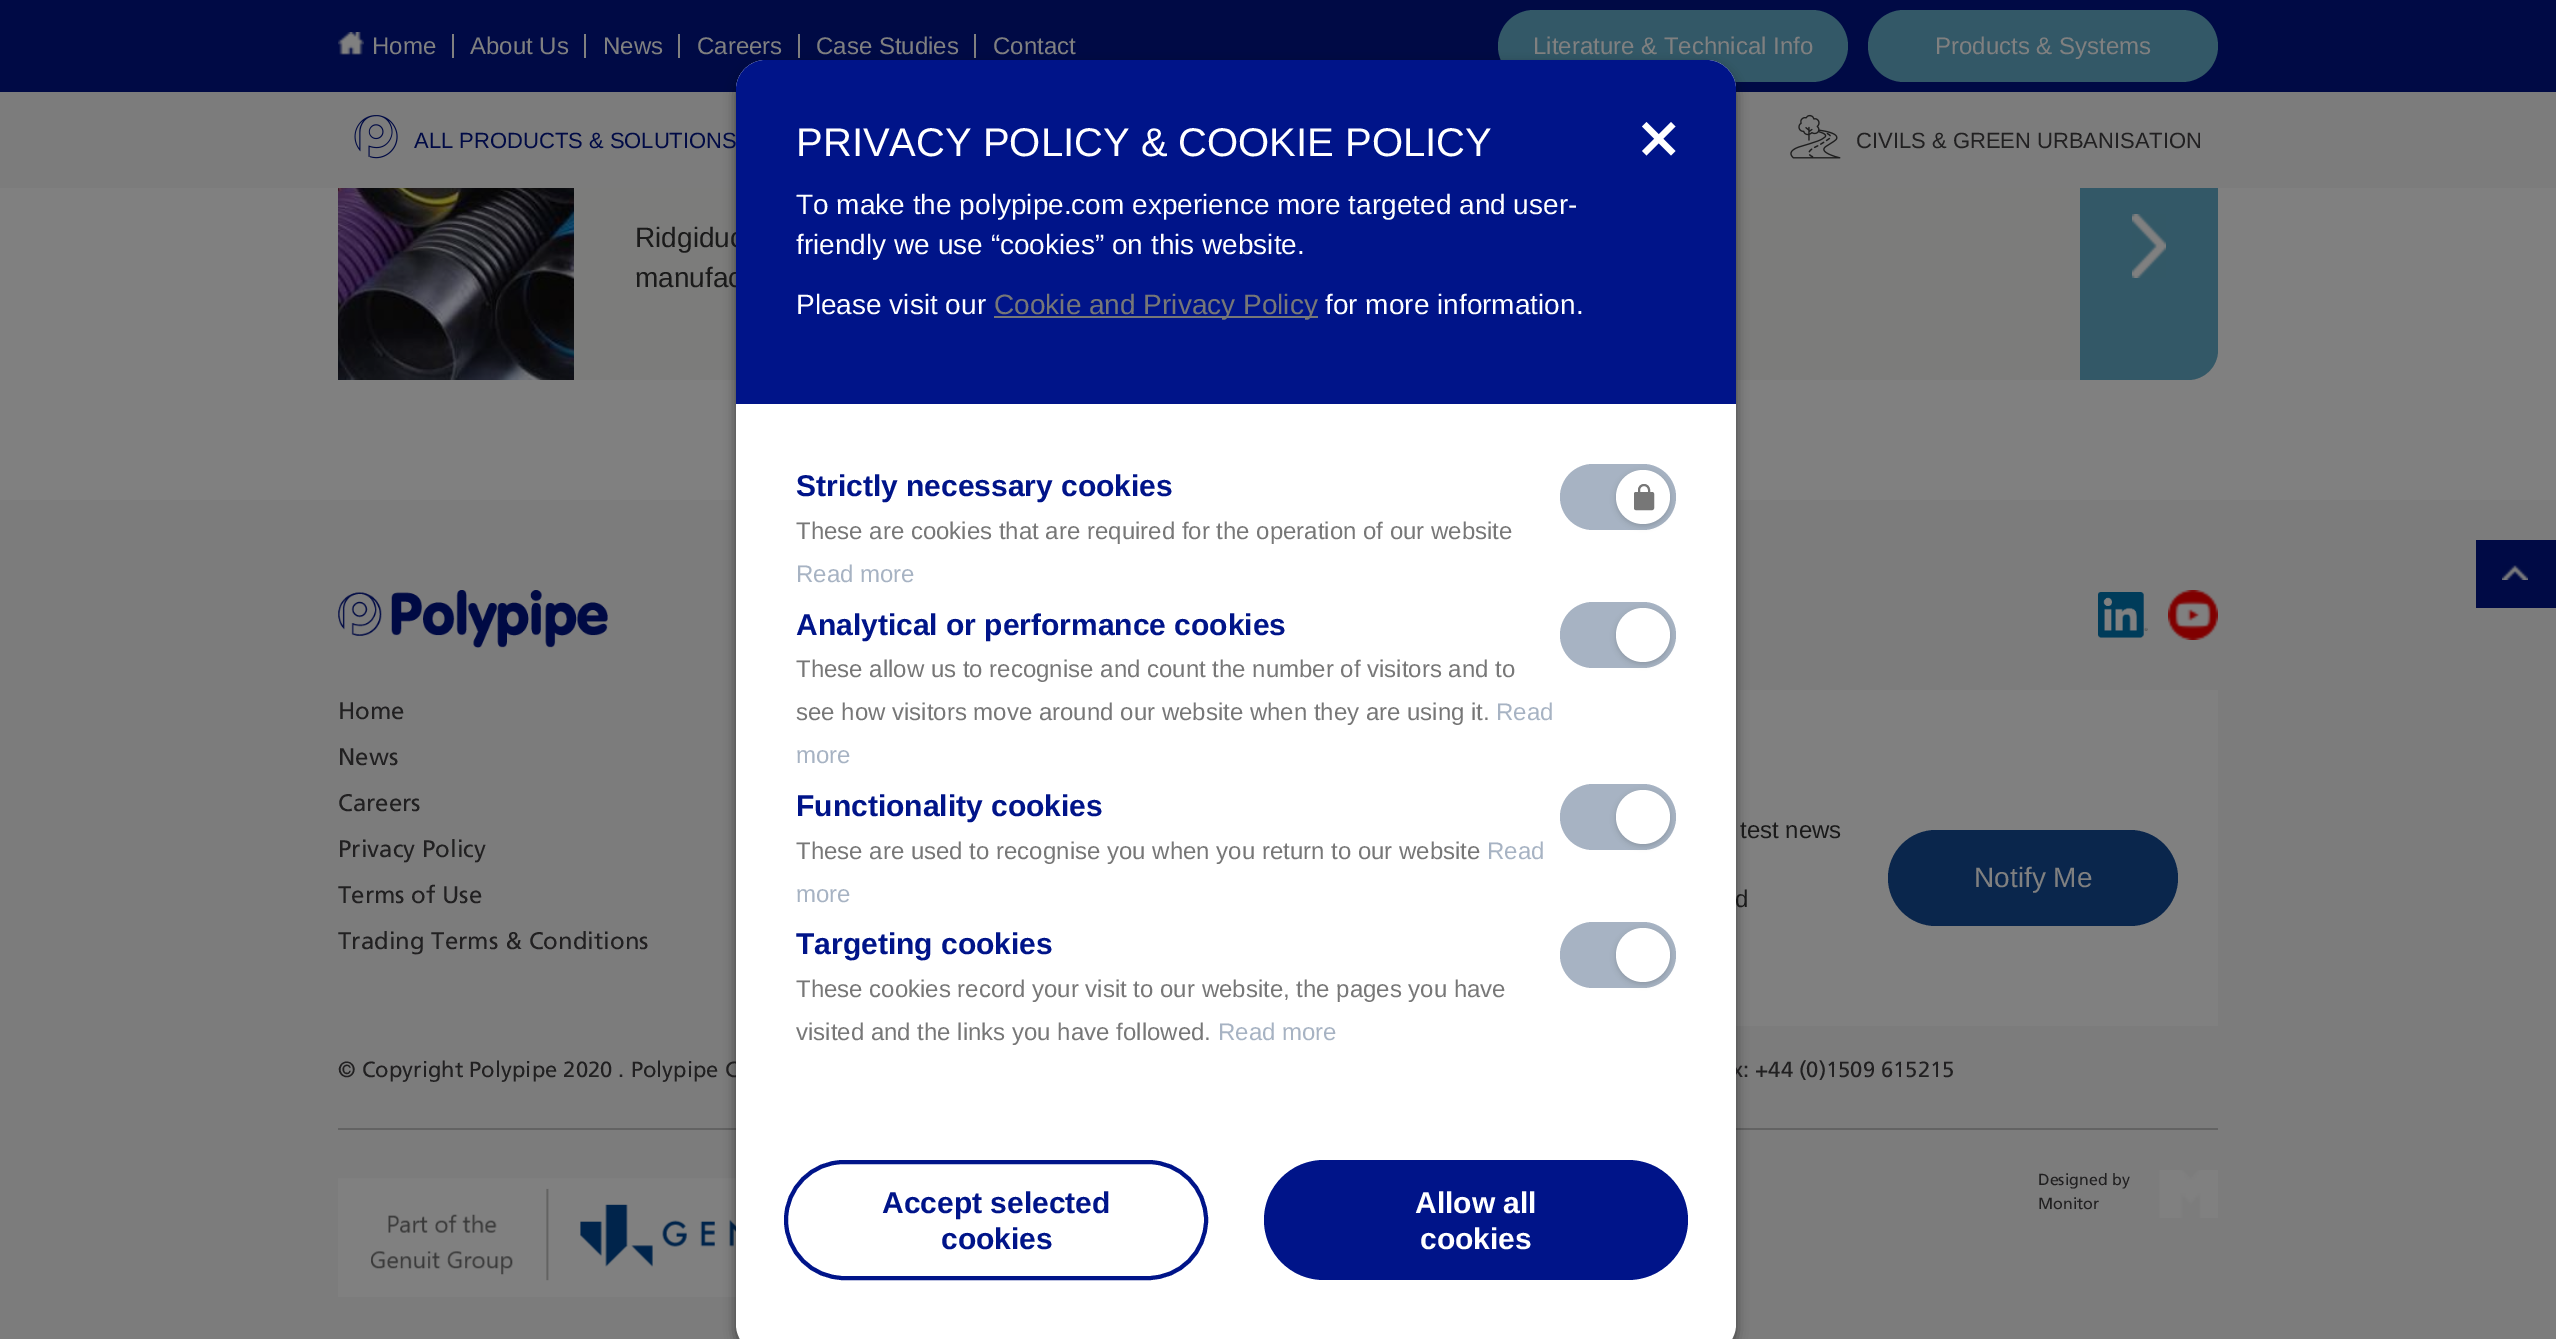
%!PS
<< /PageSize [2556 1339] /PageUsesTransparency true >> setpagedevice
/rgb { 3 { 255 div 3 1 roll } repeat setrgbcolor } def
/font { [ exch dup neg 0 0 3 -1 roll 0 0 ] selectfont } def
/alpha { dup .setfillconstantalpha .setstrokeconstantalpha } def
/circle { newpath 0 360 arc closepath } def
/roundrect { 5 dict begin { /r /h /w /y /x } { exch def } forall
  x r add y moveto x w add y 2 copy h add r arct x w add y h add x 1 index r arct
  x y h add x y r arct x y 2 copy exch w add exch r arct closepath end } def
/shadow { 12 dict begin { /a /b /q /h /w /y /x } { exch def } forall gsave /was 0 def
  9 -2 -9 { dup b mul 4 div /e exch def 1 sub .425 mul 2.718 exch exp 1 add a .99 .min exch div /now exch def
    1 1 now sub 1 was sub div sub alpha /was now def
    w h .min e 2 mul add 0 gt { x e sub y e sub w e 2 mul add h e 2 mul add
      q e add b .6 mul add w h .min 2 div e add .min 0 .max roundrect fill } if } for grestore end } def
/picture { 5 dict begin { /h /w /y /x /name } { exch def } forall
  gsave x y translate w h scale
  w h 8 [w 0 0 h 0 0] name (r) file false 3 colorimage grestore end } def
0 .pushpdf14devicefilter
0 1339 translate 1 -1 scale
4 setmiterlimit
128 128 128 rgb
0 0 2556 1339 rectfill
0 10 69 rgb
0 0 2556 92 rectfill
128 128 128 rgb
452 34 2 24 rectfill
(img/1.rgb) 338 32 26 23 picture
[
  [584 34 2 24 128 128 128]
  [678 34 2 24 128 128 128]
  [798 34 2 24 128 128 128]
  [974 34 2 24 128 128 128]
] { aload pop rgb rectfill } forall
51 88 103 rgb
1498 10 350 72 36 roundrect fill
1868 10 350 72 36 roundrect fill
124 124 123 rgb
338 114 moveto 2188 114 lineto 2204.5 114 2218 127.5 2218 144 curveto 2218 350 lineto 2218 366.5 2204.5 380 2188 380 curveto 338 380 lineto closepath fill
51 88 103 rgb
2080 114 moveto 2188 114 lineto 2204.5 114 2218 127.5 2218 144 curveto 2218 350 lineto 2218 366.5 2204.5 380 2188 380 curveto 2080 380 lineto closepath fill
124 124 124 rgb
0 92 2556 96 rectfill
(img/2.rgb) 354 115 44 44 picture
(img/3.rgb) 1790 114 51 45 picture
(img/4.rgb) 338 188 236 192 picture
(img/5.rgb) 2132 214 34 64 picture
0 500 2556 839 rectfill
0 10 69 rgb
2476 540 80 68 rectfill
(img/6.rgb) 2502 565 26 15 picture
(img/7.rgb) 338 590 270 58 picture
(img/8.rgb) 2098 592 50 46 picture
(img/9.rgb) 2168 590 50 50 picture
128 128 128 rgb
1736 690 482 336 rectfill
10 38 76 rgb
1888 830 290 96 48 roundrect fill
99 99 99 rgb
338 1128 1880 2 rectfill
(img/10.rgb) 338 1178 398 119 picture
(img/11.rgb) 2159 1170 59 48 picture
0 0 0 rgb
736 66 1000 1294 30 6 0.5 shadow
/LiberationSans-Regular 24 font
128 128 128 rgb
[
  [(Home) 372 54]
  [(About Us) 470 54]
  [(News) 603 54]
  [(Careers) 697 54]
  [(Case Studies) 816 54]
  [(Contact) 993 54]
  [(Literature & Technical Info) 1533 54]
  [(Products & Systems) 1935 54]
] { aload pop moveto show } forall
/LiberationSans-Regular 22 font
0 10 69 rgb
414 148 moveto (ALL PRODUCTS & SOLUTIONS) show
33 32 33 rgb
1856 148 moveto (CIVILS & GREEN URBANISATION) show
/LiberationSans-Regular 28 font
26 26 26 rgb
635 247 moveto (Ridgiduc) show
635 287 moveto (manufac) show
/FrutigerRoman-Regular 24 font
33 32 33 rgb
[
  [(Home) 338 719]
  [(News) 338 765]
  [(Careers) 338 811]
  [(Privacy Policy) 338 857]
  [(Terms of Use) 338 903]
  [(Trading Terms & Conditions) 338 949]
] { aload pop moveto show } forall
/LiberationSans-Regular 24 font
26 26 26 rgb
1740 838 moveto (test news) show
1735 907 moveto (d) show
/LiberationSans-Regular 28 font
128 128 128 rgb
1974 887 moveto (Notify Me) show
/FrutigerRoman-Regular 22 font
33 32 33 rgb
338 1077 moveto (© Copyright Polypipe 2020 . Polypipe C) show
1732 1077 moveto (x: +44 \(0\)1509 615215) show
/FrutigerRoman-Regular 16 font
2038 1185 moveto (Designed by) show
2038 1209 moveto (Monitor) show
255 255 255 rgb
736 60 1000 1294 30 roundrect fill
0 20 137 rgb
766 60 moveto 1706 60 lineto 1722.5 60 1736 73.5 1736 90 curveto 1736 404 lineto 736 404 lineto 736 90 lineto 736 73.5 749.5 60 766 60 curveto closepath fill
/LiberationSans-Regular 40 font
255 255 255 rgb
796 156 moveto (PRIVACY POLICY & COOKIE POLICY) show
/LiberationSans-Regular 28 font
[
  [(To make the polypipe.com experience more targeted and user-) 796 214]
  [(friendly we use “cookies” on this website.) 796 254]
  [(Please visit our) 796 314]
] { aload pop moveto show } forall
119 119 119 rgb
994 316 324 2 rectfill
994 314 moveto (Cookie and Privacy Policy) show
255 255 255 rgb
1325 314 moveto (for more information.) show
1642 151 moveto 1671 122 lineto 1675.5 126.5 lineto 1646.5 155.5 lineto closepath fill
1671 155.5 moveto 1642 126.5 lineto 1646.5 122 lineto 1675.5 151 lineto closepath fill
/LiberationSans-Bold 30 font
0 20 137 rgb
796 496 moveto (Strictly necessary cookies) show
/LiberationSans-Regular 24 font
119 119 119 rgb
796 539 moveto (These are cookies that are required for the operation of our website) show
167 179 195 rgb
796 582 moveto (Read more) show
1560 464 116 66 33 roundrect fill
0 0 0 rgb
1616 472 54 54 27 3 0.16 shadow
255 255 255 rgb
1643 497 27 circle fill
119 119 119 rgb
2 setlinewidth
1639 485 10 12 5 roundrect stroke
1635 493 18 16 1 roundrect gsave fill grestore
stroke
/LiberationSans-Bold 30 font
0 20 137 rgb
796 635 moveto (Analytical or performance cookies) show
/LiberationSans-Regular 24 font
119 119 119 rgb
796 677 moveto (These allow us to recognise and count the number of visitors and to) show
796 720 moveto (see how visitors move around our website when they are using it.) show
167 179 195 rgb
1496 720 moveto (Read) show
796 763 moveto (more) show
1560 602 116 66 33 roundrect fill
0 0 0 rgb
1616 610 54 54 27 3 0.16 shadow
255 255 255 rgb
1643 635 27 circle fill
/LiberationSans-Bold 30 font
0 20 137 rgb
796 816 moveto (Functionality cookies) show
/LiberationSans-Regular 24 font
119 119 119 rgb
796 859 moveto (These are used to recognise you when you return to our website) show
167 179 195 rgb
1487 859 moveto (Read) show
796 902 moveto (more) show
1560 784 116 66 33 roundrect fill
0 0 0 rgb
1616 792 54 54 27 3 0.16 shadow
255 255 255 rgb
1643 817 27 circle fill
/LiberationSans-Bold 30 font
0 20 137 rgb
796 954 moveto (Targeting cookies) show
/LiberationSans-Regular 24 font
119 119 119 rgb
796 997 moveto (These cookies record your visit to our website, the pages you have) show
796 1040 moveto (visited and the links you have followed.) show
167 179 195 rgb
1218 1040 moveto (Read more) show
1560 922 116 66 33 roundrect fill
0 0 0 rgb
1616 930 54 54 27 3 0.16 shadow
255 255 255 rgb
1643 955 27 circle fill
0 20 137 rgb
4 setlinewidth
786 1162 420 116 58 roundrect stroke
/LiberationSans-Bold 30 font
882 1213 moveto (Accept selected) show
941 1249 moveto (cookies) show
1264 1160 424 120 60 roundrect fill
255 255 255 rgb
1415 1213 moveto (Allow all) show
1420 1249 moveto (cookies) show
.poppdf14devicefilter showpage
